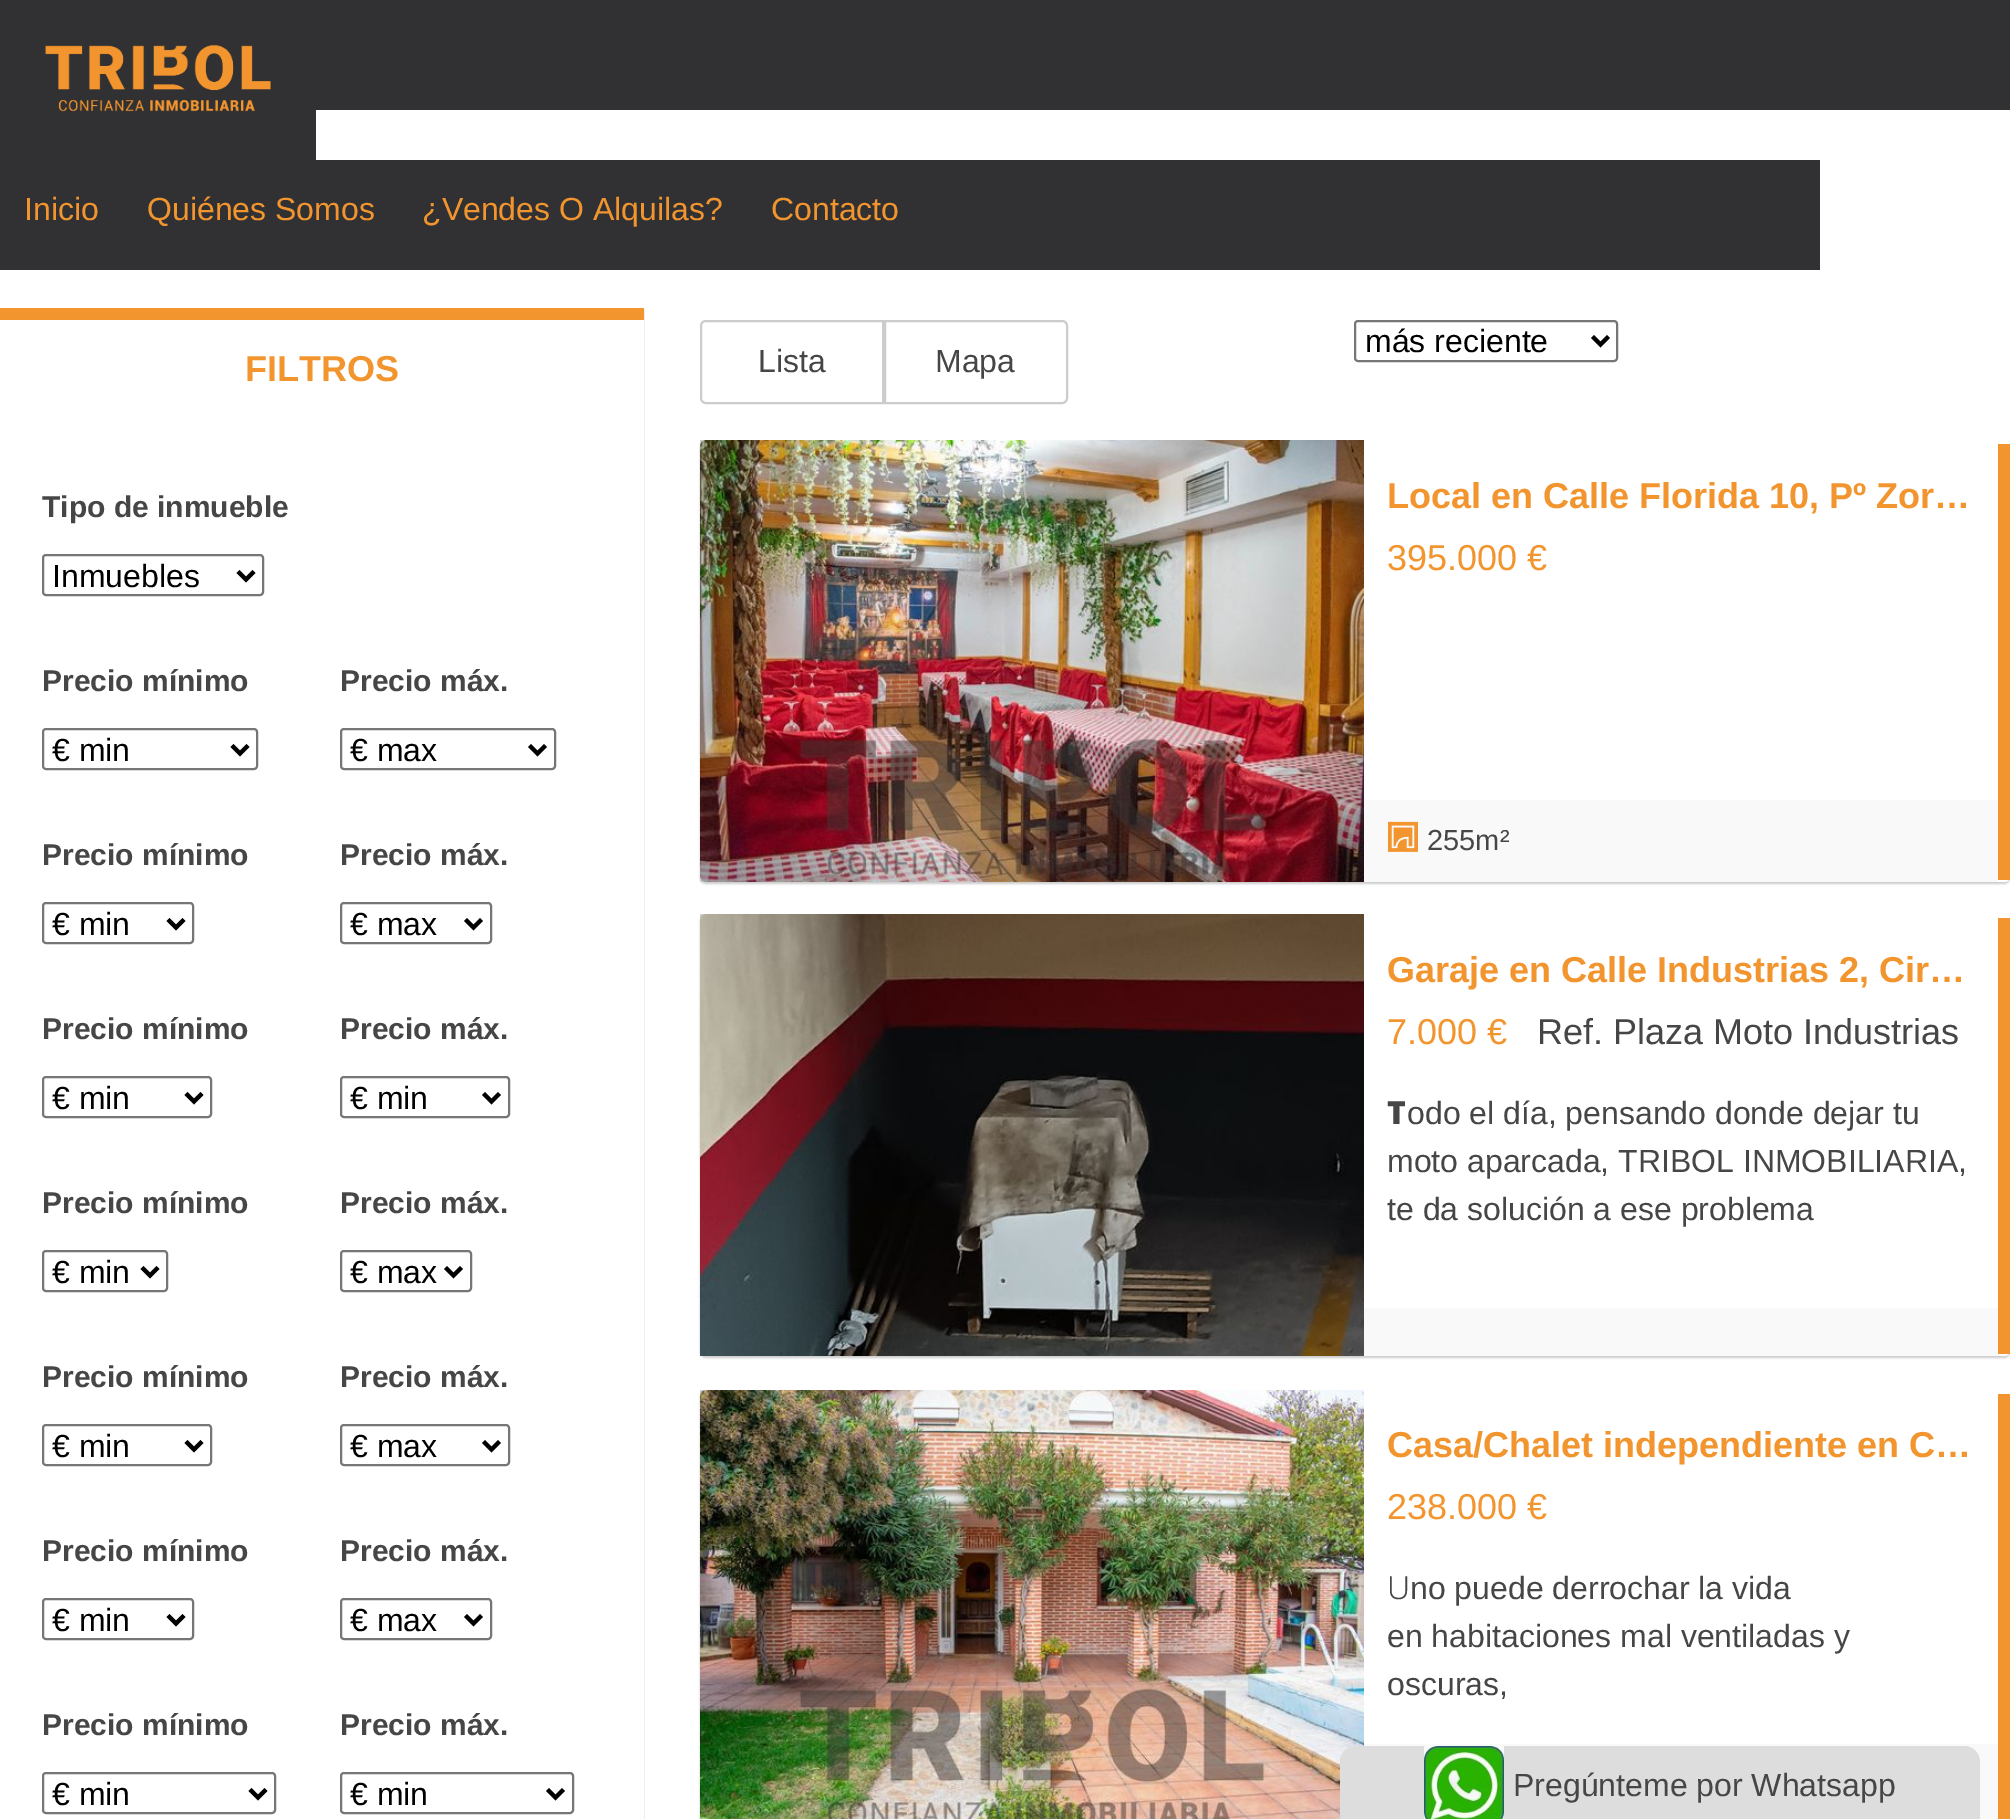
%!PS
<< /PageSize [2010 1819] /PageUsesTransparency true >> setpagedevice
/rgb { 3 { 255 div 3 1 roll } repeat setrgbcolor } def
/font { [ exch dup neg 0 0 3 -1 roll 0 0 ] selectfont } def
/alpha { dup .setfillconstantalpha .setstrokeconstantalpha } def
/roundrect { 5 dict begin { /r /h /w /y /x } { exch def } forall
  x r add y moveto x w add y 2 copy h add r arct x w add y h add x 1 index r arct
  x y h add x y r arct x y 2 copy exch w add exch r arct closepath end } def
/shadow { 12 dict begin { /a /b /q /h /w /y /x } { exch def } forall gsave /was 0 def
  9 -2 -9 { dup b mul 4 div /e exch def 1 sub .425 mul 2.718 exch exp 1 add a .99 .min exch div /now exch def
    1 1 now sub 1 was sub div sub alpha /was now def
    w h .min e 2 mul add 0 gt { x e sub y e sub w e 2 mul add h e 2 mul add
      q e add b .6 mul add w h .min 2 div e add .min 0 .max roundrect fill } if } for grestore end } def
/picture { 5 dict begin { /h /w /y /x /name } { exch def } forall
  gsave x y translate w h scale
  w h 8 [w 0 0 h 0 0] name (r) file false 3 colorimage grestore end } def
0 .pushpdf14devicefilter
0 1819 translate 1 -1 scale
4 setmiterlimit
255 255 255 rgb
0 0 2010 1819 rectfill
49 49 51 rgb
0 0 2010 110 rectfill
(img/1.rgb) 0 44 316 116 picture
0 160 1820 110 rectfill
gsave
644 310 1 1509 rectclip
0 0 0 rgb
0 310 644 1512 0 1 0.2 shadow
grestore
242 149 46 rgb
0 308 644 12 rectfill
118 118 118 rgb
2 setlinewidth
43 555 220 40 3 roundrect stroke
0 0 0 rgb
4 setlinewidth
238 571.5 moveto 246 579.5 lineto 254 571.5 lineto stroke
118 118 118 rgb
2 setlinewidth
43 729 214 40 3 roundrect stroke
0 0 0 rgb
4 setlinewidth
232 745.5 moveto 240 753.5 lineto 248 745.5 lineto stroke
118 118 118 rgb
2 setlinewidth
341 729 214 40 3 roundrect stroke
0 0 0 rgb
4 setlinewidth
529.5 745.5 moveto 537.5 753.5 lineto 545.5 745.5 lineto stroke
118 118 118 rgb
2 setlinewidth
43 903 150 40 3 roundrect stroke
0 0 0 rgb
4 setlinewidth
168 919.5 moveto 176 927.5 lineto 184 919.5 lineto stroke
118 118 118 rgb
2 setlinewidth
341 903 150 40 3 roundrect stroke
0 0 0 rgb
4 setlinewidth
465.5 919.5 moveto 473.5 927.5 lineto 481.5 919.5 lineto stroke
118 118 118 rgb
2 setlinewidth
43 1077 168 40 3 roundrect stroke
0 0 0 rgb
4 setlinewidth
186 1093.5 moveto 194 1101.5 lineto 202 1093.5 lineto stroke
118 118 118 rgb
2 setlinewidth
341 1077 168 40 3 roundrect stroke
0 0 0 rgb
4 setlinewidth
483.5 1093.5 moveto 491.5 1101.5 lineto 499.5 1093.5 lineto stroke
118 118 118 rgb
2 setlinewidth
43 1251 124 40 3 roundrect stroke
0 0 0 rgb
4 setlinewidth
142 1267.5 moveto 150 1275.5 lineto 158 1267.5 lineto stroke
118 118 118 rgb
2 setlinewidth
341 1251 130 40 3 roundrect stroke
0 0 0 rgb
4 setlinewidth
445.5 1267.5 moveto 453.5 1275.5 lineto 461.5 1267.5 lineto stroke
118 118 118 rgb
2 setlinewidth
43 1425 168 40 3 roundrect stroke
0 0 0 rgb
4 setlinewidth
186 1441.5 moveto 194 1449.5 lineto 202 1441.5 lineto stroke
118 118 118 rgb
2 setlinewidth
341 1425 168 40 3 roundrect stroke
0 0 0 rgb
4 setlinewidth
483.5 1441.5 moveto 491.5 1449.5 lineto 499.5 1441.5 lineto stroke
118 118 118 rgb
2 setlinewidth
43 1599 150 40 3 roundrect stroke
0 0 0 rgb
4 setlinewidth
168 1615.5 moveto 176 1623.5 lineto 184 1615.5 lineto stroke
118 118 118 rgb
2 setlinewidth
341 1599 150 40 3 roundrect stroke
0 0 0 rgb
4 setlinewidth
465.5 1615.5 moveto 473.5 1623.5 lineto 481.5 1615.5 lineto stroke
118 118 118 rgb
2 setlinewidth
43 1773 232 40 3 roundrect stroke
0 0 0 rgb
4 setlinewidth
250 1789.5 moveto 258 1797.5 lineto 266 1789.5 lineto stroke
118 118 118 rgb
2 setlinewidth
341 1773 232 40 3 roundrect stroke
0 0 0 rgb
4 setlinewidth
547.5 1789.5 moveto 555.5 1797.5 lineto 563.5 1789.5 lineto stroke
118 118 118 rgb
2 setlinewidth
1355 321 262 40 3 roundrect stroke
0 0 0 rgb
4 setlinewidth
1592.5 336.5 moveto 1600.5 344.5 lineto 1608.5 336.5 lineto stroke
204 204 204 rgb
2 setlinewidth
706 321 moveto 883 321 lineto 883 403 lineto 706 403 lineto 703 403 701 401 701 398 curveto 701 326 lineto 701 323 703 321 706 321 curveto closepath stroke
885 321 moveto 1062 321 lineto 1065 321 1067 323 1067 326 curveto 1067 398 lineto 1067 401 1065 403 1062 403 curveto 885 403 lineto closepath stroke
0 0 0 rgb
700 442 1310 442 6 1 0.2 shadow
255 255 255 rgb
700 440 1310 442 6 roundrect fill
242 149 46 rgb
1998 444 12 436 rectfill
204 204 204 rgb
700 440 6 442 rectfill
(img/2.rgb) 700 440 664 442 picture
249 249 249 rgb
1364 800 634 82 rectfill
(img/3.rgb) 1388 821 30 31 picture
0 0 0 rgb
700 916 1310 442 6 1 0.2 shadow
255 255 255 rgb
700 914 1310 442 6 roundrect fill
242 149 46 rgb
1998 918 12 436 rectfill
204 204 204 rgb
700 914 6 6 rectfill
(img/4.rgb) 700 914 664 442 picture
249 249 249 rgb
1364 1308 634 48 rectfill
0 0 0 rgb
700 1392 1310 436 6 1 0.2 shadow
255 255 255 rgb
700 1390 1310 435 6 roundrect fill
242 149 46 rgb
1998 1394 12 425 rectfill
204 204 204 rgb
700 1390 6 6 rectfill
(img/5.rgb) 700 1390 664 429 picture
249 249 249 rgb
1364 1744 634 75 rectfill
221 221 221 rgb
1356 1746 moveto 1964 1746 lineto 1973 1746 1980 1753 1980 1762 curveto 1980 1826 lineto 1340 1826 lineto 1340 1762 lineto 1340 1753 1347 1746 1356 1746 curveto closepath fill
(img/6.rgb) 1424 1746 80 73 picture
/LiberationSans-Regular 32 font
242 149 46 rgb
[
  [(Inicio) 24 220]
  [(Quiénes Somos) 147 220]
  [(¿Vendes O Alquilas?) 422 220]
  [(Contacto) 771 220]
] { aload pop moveto show } forall
/LiberationSans-Bold 36 font
245 381 moveto (FILTROS) show
/LiberationSans-Bold 30 font
70 70 70 rgb
42 517 moveto (Tipo de inmueble) show
/LiberationSans-Regular 32 font
0 0 0 rgb
52 587 moveto (Inmuebles) show
/LiberationSans-Bold 30 font
70 70 70 rgb
42 691 moveto (Precio mínimo) show
/LiberationSans-Regular 32 font
0 0 0 rgb
52 761 moveto (€ min) show
/LiberationSans-Bold 30 font
70 70 70 rgb
340 691 moveto (Precio máx.) show
/LiberationSans-Regular 32 font
0 0 0 rgb
350 761 moveto (€ max) show
/LiberationSans-Bold 30 font
70 70 70 rgb
42 865 moveto (Precio mínimo) show
/LiberationSans-Regular 32 font
0 0 0 rgb
52 935 moveto (€ min) show
/LiberationSans-Bold 30 font
70 70 70 rgb
340 865 moveto (Precio máx.) show
/LiberationSans-Regular 32 font
0 0 0 rgb
350 935 moveto (€ max) show
/LiberationSans-Bold 30 font
70 70 70 rgb
42 1039 moveto (Precio mínimo) show
/LiberationSans-Regular 32 font
0 0 0 rgb
52 1109 moveto (€ min) show
/LiberationSans-Bold 30 font
70 70 70 rgb
340 1039 moveto (Precio máx.) show
/LiberationSans-Regular 32 font
0 0 0 rgb
350 1109 moveto (€ min) show
/LiberationSans-Bold 30 font
70 70 70 rgb
42 1213 moveto (Precio mínimo) show
/LiberationSans-Regular 32 font
0 0 0 rgb
52 1283 moveto (€ min) show
/LiberationSans-Bold 30 font
70 70 70 rgb
340 1213 moveto (Precio máx.) show
/LiberationSans-Regular 32 font
0 0 0 rgb
350 1283 moveto (€ max) show
/LiberationSans-Bold 30 font
70 70 70 rgb
42 1387 moveto (Precio mínimo) show
/LiberationSans-Regular 32 font
0 0 0 rgb
52 1457 moveto (€ min) show
/LiberationSans-Bold 30 font
70 70 70 rgb
340 1387 moveto (Precio máx.) show
/LiberationSans-Regular 32 font
0 0 0 rgb
350 1457 moveto (€ max) show
/LiberationSans-Bold 30 font
70 70 70 rgb
42 1561 moveto (Precio mínimo) show
/LiberationSans-Regular 32 font
0 0 0 rgb
52 1631 moveto (€ min) show
/LiberationSans-Bold 30 font
70 70 70 rgb
340 1561 moveto (Precio máx.) show
/LiberationSans-Regular 32 font
0 0 0 rgb
350 1631 moveto (€ max) show
/LiberationSans-Bold 30 font
70 70 70 rgb
42 1735 moveto (Precio mínimo) show
/LiberationSans-Regular 32 font
0 0 0 rgb
52 1805 moveto (€ min) show
/LiberationSans-Bold 30 font
70 70 70 rgb
340 1735 moveto (Precio máx.) show
/LiberationSans-Regular 32 font
0 0 0 rgb
350 1805 moveto (€ min) show
1365 352 moveto (más reciente) show
70 70 70 rgb
758 372 moveto (Lista) show
935 372 moveto (Mapa) show
/LiberationSans-Bold 36 font
242 149 46 rgb
1387 508 moveto (Local en Calle Florida 10, Pº Zor…) show
/LiberationSans-Regular 36 font
1387 570 moveto (395.000 €) show
/LiberationSans-Regular 29 font
70 70 70 rgb
1427 850 moveto (255m²) show
/LiberationSans-Bold 36 font
242 149 46 rgb
1387 982 moveto (Garaje en Calle Industrias 2, Cir…) show
/LiberationSans-Regular 36 font
1387 1044 moveto (7.000 €) show
70 70 70 rgb
1537 1044 moveto (Ref. Plaza Moto Industrias) show
/NotoSans-Black 32 font
1387 1124 moveto (T) show
/LiberationSans-Regular 32 font
[
  [(odo el día, pensando donde dejar tu) 1407 1124]
  [(moto aparcada, TRIBOL INMOBILIARIA,) 1387 1172]
  [(te da solución a ese problema) 1387 1220]
] { aload pop moveto show } forall
/LiberationSans-Bold 36 font
242 149 46 rgb
1387 1457 moveto (Casa/Chalet independiente en C…) show
/LiberationSans-Regular 36 font
1387 1519 moveto (238.000 €) show
/NotoSans-Light 32 font
70 70 70 rgb
1387 1599 moveto (U) show
/LiberationSans-Regular 32 font
[
  [(no puede derrochar la vida) 1410 1599]
  [(en habitaciones mal ventiladas y) 1387 1647]
  [(oscuras,) 1387 1695]
  [(Pregúnteme por Whatsapp) 1513 1796]
] { aload pop moveto show } forall
.poppdf14devicefilter showpage
